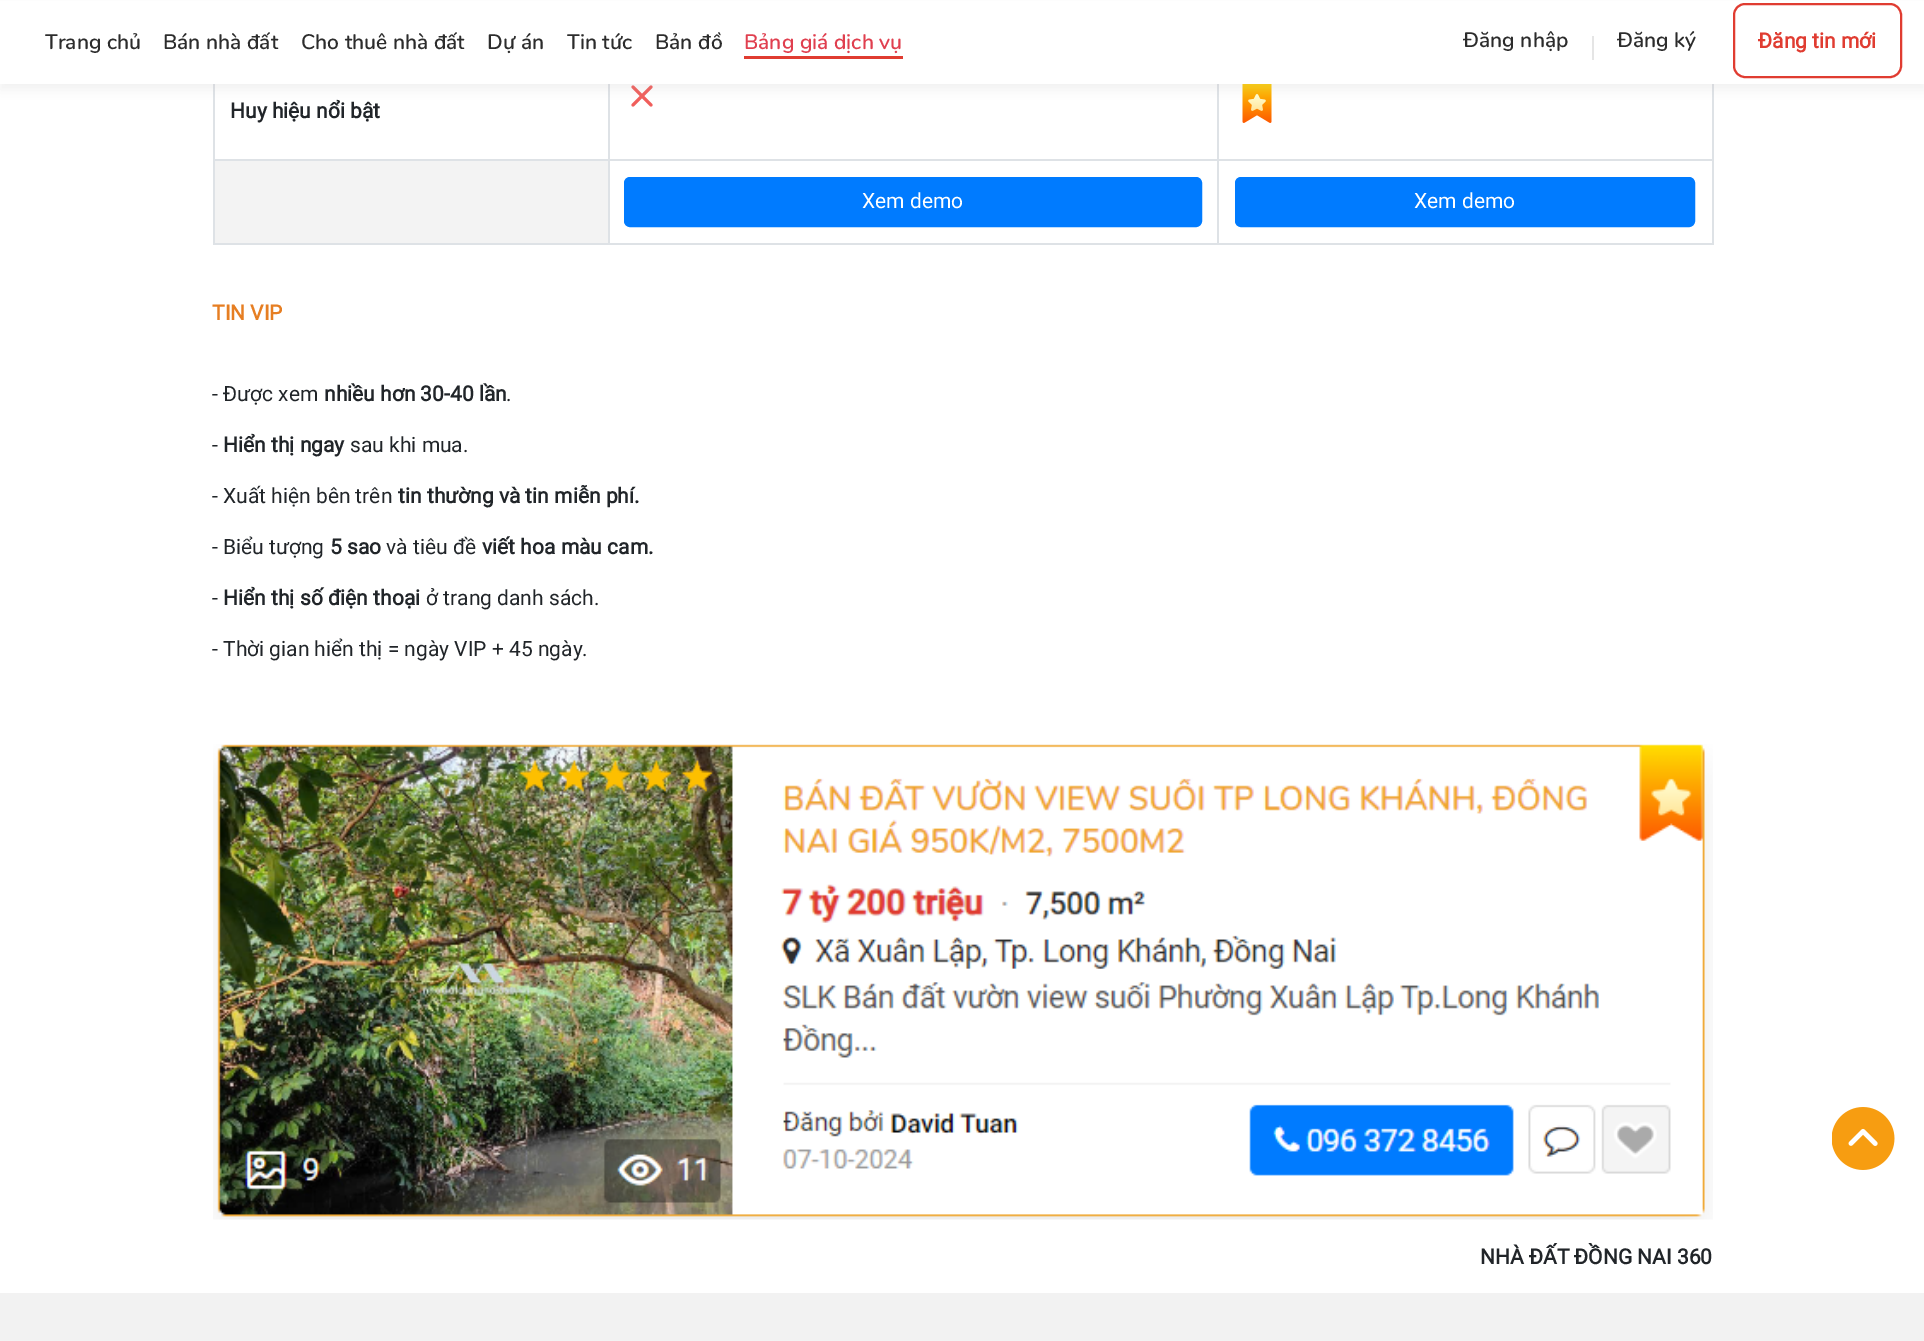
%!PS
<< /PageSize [1924 1341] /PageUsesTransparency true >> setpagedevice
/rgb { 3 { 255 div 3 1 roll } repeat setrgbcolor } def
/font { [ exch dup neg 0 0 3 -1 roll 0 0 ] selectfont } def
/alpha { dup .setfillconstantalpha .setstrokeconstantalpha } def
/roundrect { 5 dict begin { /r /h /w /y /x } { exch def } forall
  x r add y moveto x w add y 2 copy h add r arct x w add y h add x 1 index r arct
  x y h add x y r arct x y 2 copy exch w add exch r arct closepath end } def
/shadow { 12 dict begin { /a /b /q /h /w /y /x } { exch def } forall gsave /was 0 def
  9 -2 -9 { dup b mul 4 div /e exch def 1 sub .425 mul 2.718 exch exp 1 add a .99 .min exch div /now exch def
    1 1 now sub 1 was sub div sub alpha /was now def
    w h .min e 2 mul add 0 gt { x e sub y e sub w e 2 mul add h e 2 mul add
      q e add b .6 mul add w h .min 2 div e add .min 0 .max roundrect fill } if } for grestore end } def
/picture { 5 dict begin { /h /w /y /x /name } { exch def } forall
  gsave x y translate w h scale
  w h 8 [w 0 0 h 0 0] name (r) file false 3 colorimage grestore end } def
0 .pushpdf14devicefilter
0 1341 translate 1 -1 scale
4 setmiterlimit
255 255 255 rgb
0 0 1924 1341 rectfill
[
  [1712 84 2 161 222 226 230]
  [213 243 1500 2 222 226 230]
  [213 84 2 161 222 226 230]
  [1217 159 496 2 222 226 230]
  [1217 159 2 86 222 226 230]
  [608 159 610 2 222 226 230]
  [608 159 2 86 222 226 230]
  [213 159 396 2 222 226 230]
  [608 84 2 77 222 226 230]
] { aload pop rgb rectfill } forall
240 94 91 rgb
3 setlinewidth
1 setlinecap
1 setlinejoin
651 87 moveto 633 105 lineto 633 87 moveto 651 105 lineto stroke
222 226 230 rgb
1217 84 2 77 rectfill
(img/1.rgb) 1242 84 30 39 picture
182 182 182 rgb
0 6 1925 84 0 6 0.18 shadow
[
  [0 1 1924 83 255 255 255]
  [744 56 159 3 224 60 49]
  [1592 36 2 24 229 229 229]
] { aload pop rgb rectfill } forall
224 60 49 rgb
2 setlinewidth
0 setlinecap
0 setlinejoin
1734 4 167 73 11 roundrect stroke
243 243 243 rgb
215 161 393 82 rectfill
0 123 255 rgb
625 178 576 48 5 roundrect gsave fill grestore
stroke
1236 178 458 48 5 roundrect gsave fill grestore
stroke
(img/2.rgb) 213 744 1500 476 picture
(img/3.rgb) 1832 1107 63 63 picture
242 242 242 rgb
0 1293 1924 48 rectfill
/Nunito-SemiBold 21 font
44 44 44 rgb
[
  [(Trang chủ) 45 49]
  [(Bán nhà đất) 163 49]
  [(Cho thuê nhà đất) 301 49]
  [(Dự án) 487 49]
  [(Tin tức) 567 49]
  [(Bản đồ) 655 49]
] { aload pop moveto show } forall
224 63 79 rgb
744 49 moveto (Bảng giá dịch vụ) show
44 44 44 rgb
1463 47 moveto (Đăng nhập) show
1617 47 moveto (Đăng ký) show
/Roboto-Bold 21 font
224 60 49 rgb
1758 48 moveto (Đăng tin mới) show
33 37 41 rgb
230 118 moveto (Huy hiệu nổi bật) show
/Roboto-Regular 21 font
255 255 255 rgb
862 208 moveto (Xem demo) show
1414 208 moveto (Xem demo) show
/Roboto-Bold 21 font
230 126 34 rgb
212 320 moveto (TIN VIP) show
/Roboto-Regular 21 font
33 37 41 rgb
212 401 moveto (- Được xem) show
/Roboto-Bold 21 font
324 401 moveto (nhiều hơn 30-40 lần) show
/Roboto-Regular 21 font
506 401 moveto (.) show
212 452 moveto (-) show
/Roboto-Bold 21 font
223 452 moveto (Hiển thị ngay) show
/Roboto-Regular 21 font
350 452 moveto (sau khi mua.) show
212 503 moveto (- Xuất hiện bên trên) show
/Roboto-Bold 21 font
398 503 moveto (tin thường và tin miễn phí.) show
/Roboto-Regular 21 font
212 554 moveto (- Biểu tượng) show
/Roboto-Bold 21 font
330 554 moveto (5 sao) show
/Roboto-Regular 21 font
386 554 moveto (và tiêu đề) show
/Roboto-Bold 21 font
482 554 moveto (viết hoa màu cam.) show
/Roboto-Regular 21 font
212 605 moveto (-) show
/Roboto-Bold 21 font
223 605 moveto (Hiển thị số điện thoại) show
/Roboto-Regular 21 font
426 605 moveto (ở trang danh sách.) show
212 656 moveto (- Thời gian hiển thị = ngày VIP + 45 ngày.) show
/Roboto-Bold 21 font
1480 1264 moveto (NHÀ ĐẤT ĐỒNG NAI 360) show
.poppdf14devicefilter showpage
